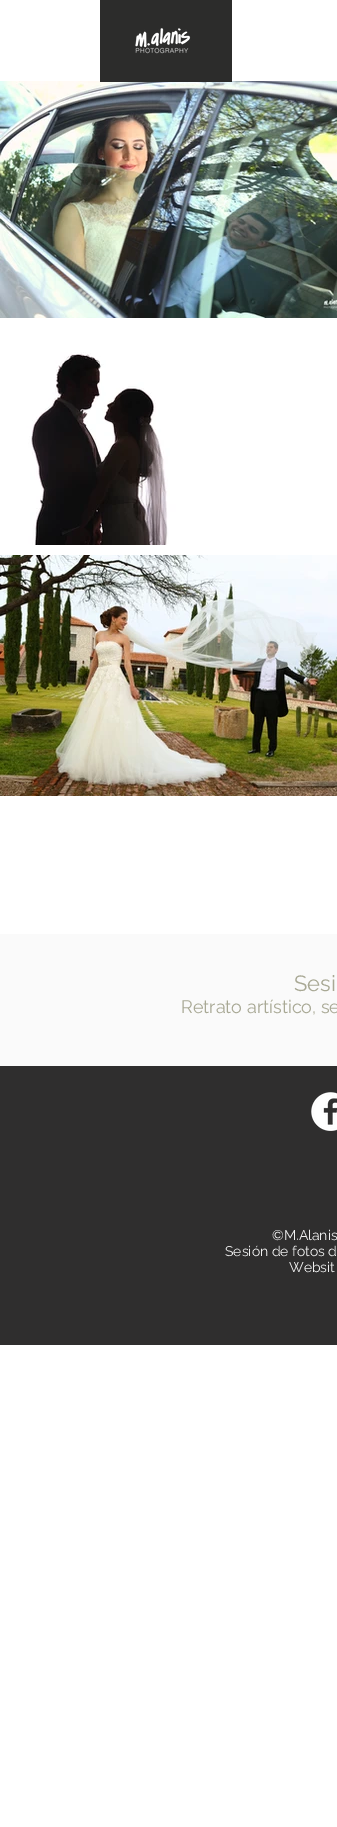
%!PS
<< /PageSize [337 1827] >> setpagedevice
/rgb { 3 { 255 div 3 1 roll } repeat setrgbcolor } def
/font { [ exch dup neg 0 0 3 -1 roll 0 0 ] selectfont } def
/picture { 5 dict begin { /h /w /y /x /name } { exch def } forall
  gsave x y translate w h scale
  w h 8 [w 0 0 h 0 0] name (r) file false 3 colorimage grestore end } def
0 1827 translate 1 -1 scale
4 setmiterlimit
255 255 255 rgb
0 0 337 1827 rectfill
(img/2.rgb) 0 81 337 237 picture
44 44 43 rgb
100 0 132 82 rectfill
(img/1.rgb) 135 28 56 26 picture
(img/3.rgb) 0 328 337 217 picture
(img/4.rgb) 0 555 337 241 picture
250 250 250 rgb
0 934 337 132 rectfill
47 46 46 rgb
0 1066 337 279 rectfill
(img/5.rgb) 311 1092 26 39 picture
/Raleway-Thin 22 font
168 168 148 rgb
294 991 moveto (Sesi) show
/Raleway-Thin 18 font
181 1013 moveto (Retrato artístico, se) show
/Raleway-Thin 14 font
241 241 241 rgb
[
  [(©M.Alanis) 272 1240]
  [(Sesión de fotos d) 225 1256]
  [(Websit) 289 1272]
] { aload pop moveto show } forall
showpage
